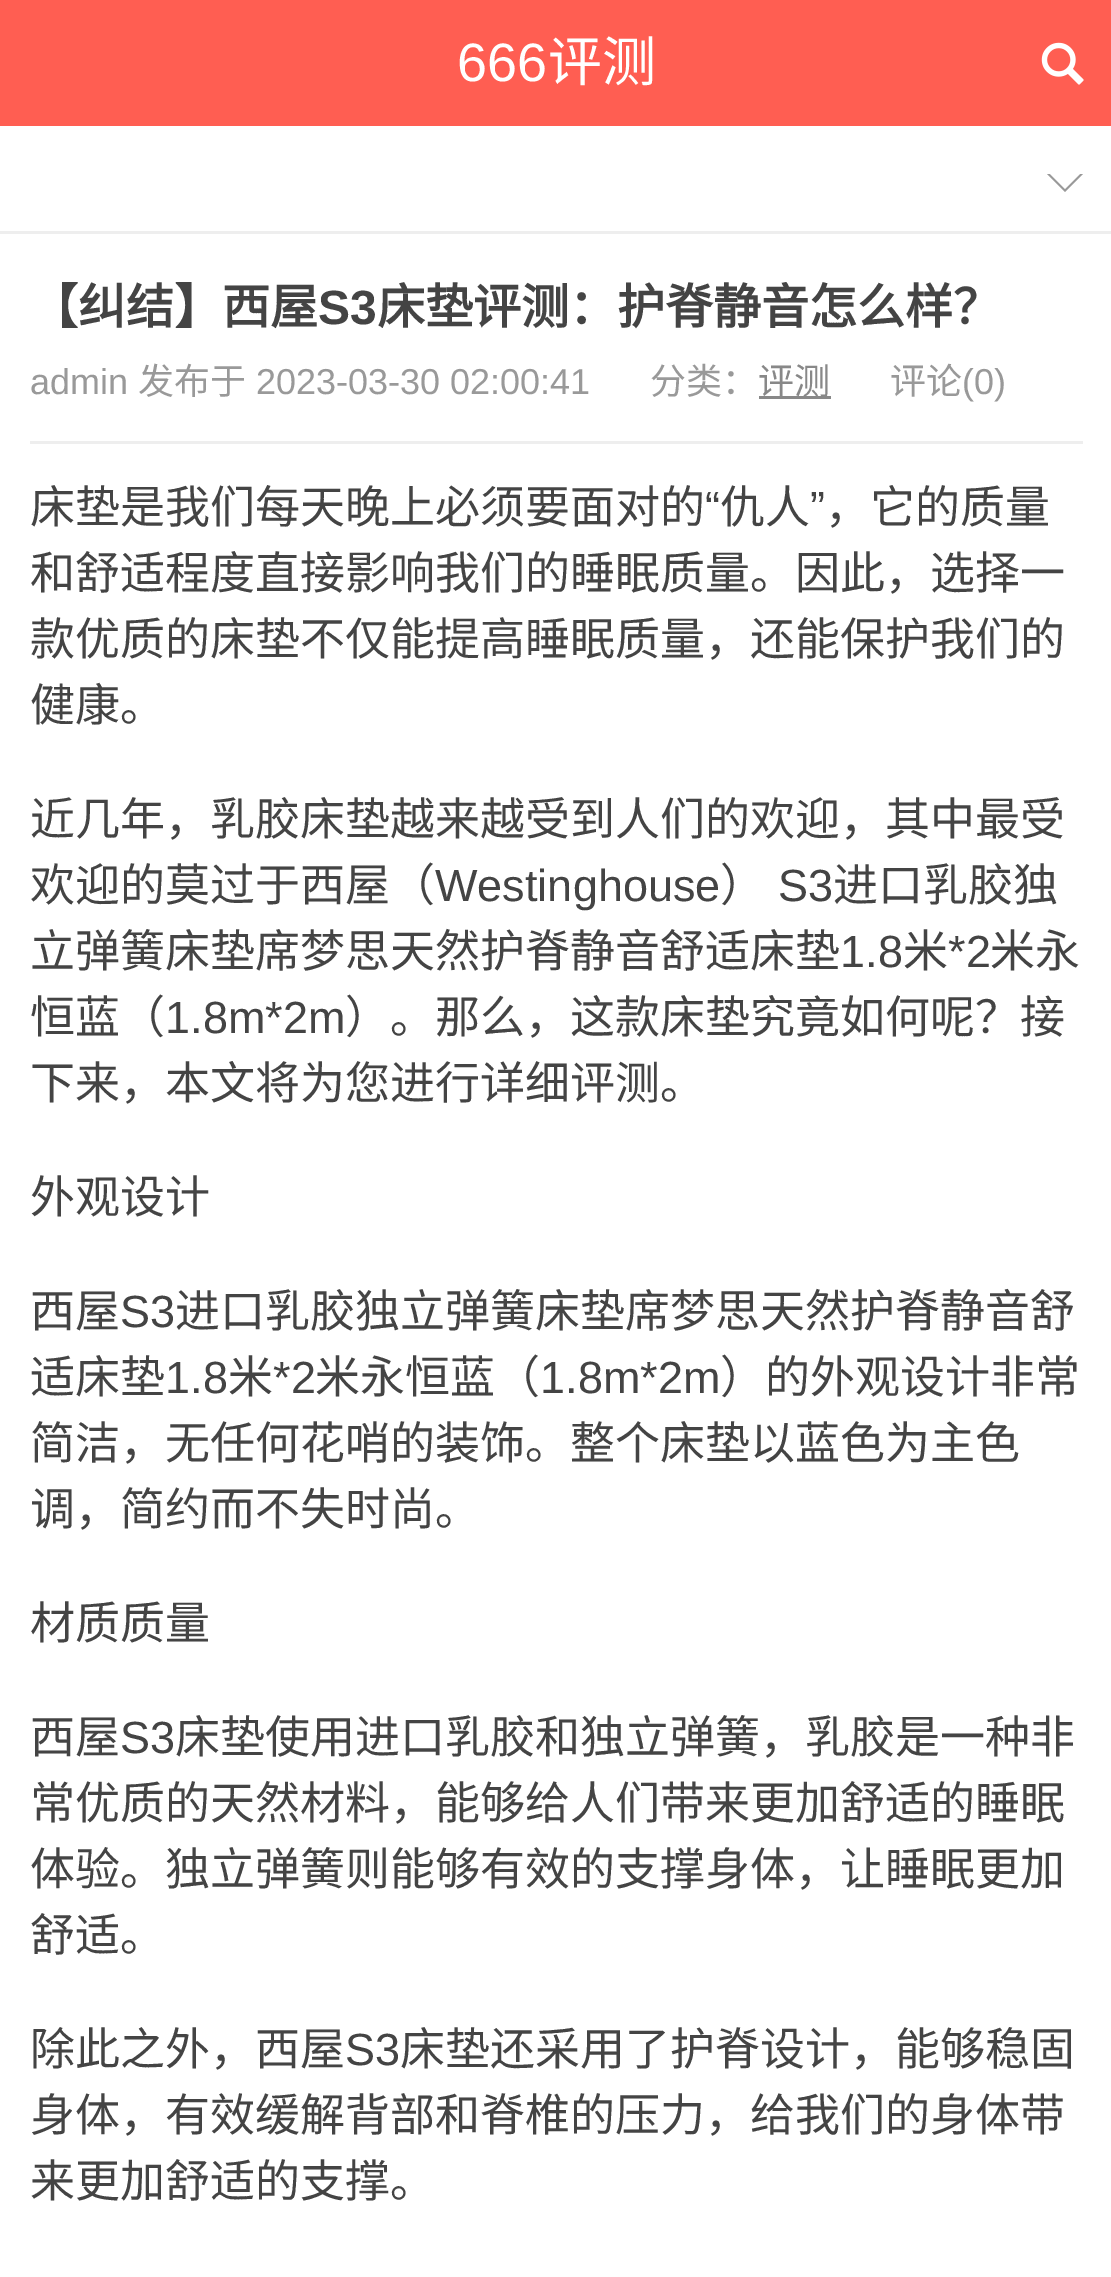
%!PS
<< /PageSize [1111 2277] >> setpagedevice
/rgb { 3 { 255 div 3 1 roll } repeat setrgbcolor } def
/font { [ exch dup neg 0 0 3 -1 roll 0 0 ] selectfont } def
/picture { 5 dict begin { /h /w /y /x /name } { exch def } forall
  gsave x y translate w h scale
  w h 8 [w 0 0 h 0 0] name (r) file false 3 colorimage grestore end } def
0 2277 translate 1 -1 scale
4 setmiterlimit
255 255 255 rgb
0 0 1111 2277 rectfill
255 94 82 rgb
0 0 1111 126 rectfill
(img/1.rgb) 1041 42 43 43 picture
153 153 153 rgb
1047 174 moveto 1083 174 lineto 1065 192 lineto closepath fill
255 255 255 rgb
1047 171 moveto 1083 171 lineto 1065 189 lineto closepath fill
[
  [0 231 1111 3 238 238 238]
  [30 441 1053 3 238 238 238]
  [759 396 72 3 136 136 136]
] { aload pop rgb rectfill } forall
/LiberationSans-Regular 54 font
255 255 255 rgb
457 81 moveto (666) show
/NotoSansCJKSC-Regular 54 font
548 81 moveto (评测) show
/NotoSansCJKSC-Bold 48 font
68 68 68 rgb
30 324 moveto (【纠结】西屋) show
/LiberationSans-Bold 48 font
318 324 moveto (S3) show
/NotoSansCJKSC-Bold 48 font
377 324 moveto (床垫评测：护脊静音怎么样？) show
/LiberationSans-Regular 36 font
153 153 153 rgb
30 394 moveto (admin) show
/NotoSansCJKSC-Regular 36 font
138 394 moveto (发布于) show
/LiberationSans-Regular 36 font
256 394 moveto (2023-03-30 02:00:41) show
/NotoSansCJKSC-Regular 36 font
650 394 moveto (分类：) show
136 136 136 rgb
758 394 moveto (评测) show
153 153 153 rgb
890 394 moveto (评论) show
/LiberationSans-Regular 36 font
962 394 moveto (\(0\)) show
/NotoSansCJKSC-Regular 45 font
68 68 68 rgb
30 523 moveto (床垫是我们每天晚上必须要面对的) show
/LiberationSans-Regular 45 font
705 523 moveto (“) show
/NotoSansCJKSC-Regular 45 font
720 523 moveto (仇人) show
/LiberationSans-Regular 45 font
810 523 moveto (”) show
/NotoSansCJKSC-Regular 45 font
[
  [(，它的质量) 825 523]
  [(和舒适程度直接影响我们的睡眠质量。因此，选择一) 30 589]
  [(款优质的床垫不仅能提高睡眠质量，还能保护我们的) 30 655]
  [(健康。) 30 721]
  [(近几年，乳胶床垫越来越受到人们的欢迎，其中最受) 30 835]
  [(欢迎的莫过于西屋（) 30 901]
] { aload pop moveto show } forall
/LiberationSans-Regular 45 font
435 901 moveto (Westinghouse) show
/NotoSansCJKSC-Regular 45 font
720 901 moveto (）) show
/LiberationSans-Regular 45 font
778 901 moveto (S3) show
/NotoSansCJKSC-Regular 45 font
833 901 moveto (进口乳胶独) show
30 967 moveto (立弹簧床垫席梦思天然护脊静音舒适床垫) show
/LiberationSans-Regular 45 font
840 967 moveto (1.8) show
/NotoSansCJKSC-Regular 45 font
903 967 moveto (米) show
/LiberationSans-Regular 45 font
948 967 moveto (*2) show
/NotoSansCJKSC-Regular 45 font
990 967 moveto (米永) show
30 1033 moveto (恒蓝（) show
/LiberationSans-Regular 45 font
165 1033 moveto (1.8m*2m) show
/NotoSansCJKSC-Regular 45 font
[
  [(）。那么，这款床垫究竟如何呢？接) 345 1033]
  [(下来，本文将为您进行详细评测。) 30 1099]
  [(外观设计) 30 1213]
  [(西屋) 30 1327]
] { aload pop moveto show } forall
/LiberationSans-Regular 45 font
120 1327 moveto (S3) show
/NotoSansCJKSC-Regular 45 font
175 1327 moveto (进口乳胶独立弹簧床垫席梦思天然护脊静音舒) show
30 1393 moveto (适床垫) show
/LiberationSans-Regular 45 font
165 1393 moveto (1.8) show
/NotoSansCJKSC-Regular 45 font
228 1393 moveto (米) show
/LiberationSans-Regular 45 font
273 1393 moveto (*2) show
/NotoSansCJKSC-Regular 45 font
315 1393 moveto (米永恒蓝（) show
/LiberationSans-Regular 45 font
540 1393 moveto (1.8m*2m) show
/NotoSansCJKSC-Regular 45 font
[
  [(）的外观设计非常) 720 1393]
  [(简洁，无任何花哨的装饰。整个床垫以蓝色为主色) 30 1459]
  [(调，简约而不失时尚。) 30 1525]
  [(材质质量) 30 1639]
  [(西屋) 30 1753]
] { aload pop moveto show } forall
/LiberationSans-Regular 45 font
120 1753 moveto (S3) show
/NotoSansCJKSC-Regular 45 font
[
  [(床垫使用进口乳胶和独立弹簧，乳胶是一种非) 175 1753]
  [(常优质的天然材料，能够给人们带来更加舒适的睡眠) 30 1819]
  [(体验。独立弹簧则能够有效的支撑身体，让睡眠更加) 30 1885]
  [(舒适。) 30 1951]
  [(除此之外，西屋) 30 2065]
] { aload pop moveto show } forall
/LiberationSans-Regular 45 font
345 2065 moveto (S3) show
/NotoSansCJKSC-Regular 45 font
[
  [(床垫还采用了护脊设计，能够稳固) 400 2065]
  [(身体，有效缓解背部和脊椎的压力，给我们的身体带) 30 2131]
  [(来更加舒适的支撑。) 30 2197]
] { aload pop moveto show } forall
showpage
